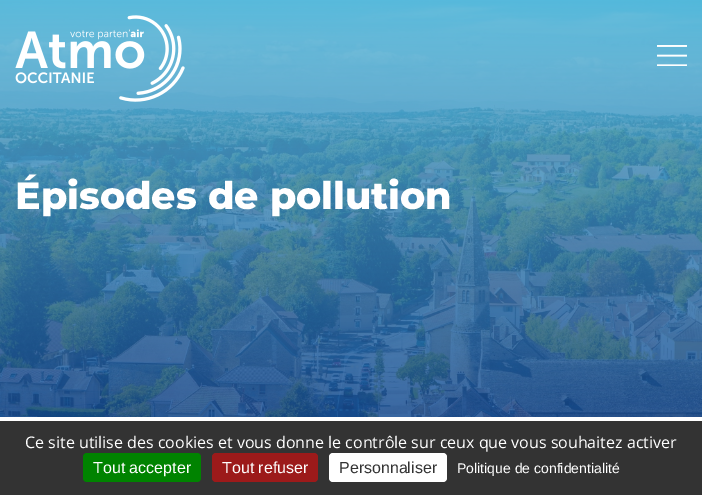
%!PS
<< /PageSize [702 495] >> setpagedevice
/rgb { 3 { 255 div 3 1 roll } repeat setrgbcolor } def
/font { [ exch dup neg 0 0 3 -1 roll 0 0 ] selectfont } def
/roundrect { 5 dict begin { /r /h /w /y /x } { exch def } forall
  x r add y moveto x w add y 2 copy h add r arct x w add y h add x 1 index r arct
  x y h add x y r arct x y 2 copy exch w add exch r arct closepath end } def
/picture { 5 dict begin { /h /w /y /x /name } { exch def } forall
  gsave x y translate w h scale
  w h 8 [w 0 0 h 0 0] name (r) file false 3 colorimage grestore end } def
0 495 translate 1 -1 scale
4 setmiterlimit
255 255 255 rgb
0 0 702 495 rectfill
(img/1.rgb) 0 0 702 417 picture
(img/2.rgb) 15 15 170 87 picture
(img/3.rgb) 657 45 30 21 picture
51 51 51 rgb
0 421 702 74 rectfill
0 131 0 rgb
83 453 118 29 4 roundrect fill
156 26 26 rgb
212 453 106 29 4 roundrect fill
255 255 255 rgb
329 453 118 29 4 roundrect fill
/Montserrat-ExtraBold 38 font
15 209 moveto (Épisodes de pollution) show
/OpenSans-Regular 16 font
25 448 moveto (Ce site utilise des cookies et vous donne le contrôle sur ceux que vous souhaitez activer) show
/LiberationSans-Regular 16 font
93 473 moveto (Tout accepter) show
222 473 moveto (Tout refuser) show
51 51 51 rgb
339 473 moveto (Personnaliser) show
/LiberationSans-Regular 14 font
255 255 255 rgb
457 473 moveto (Politique de confidentialité) show
showpage
